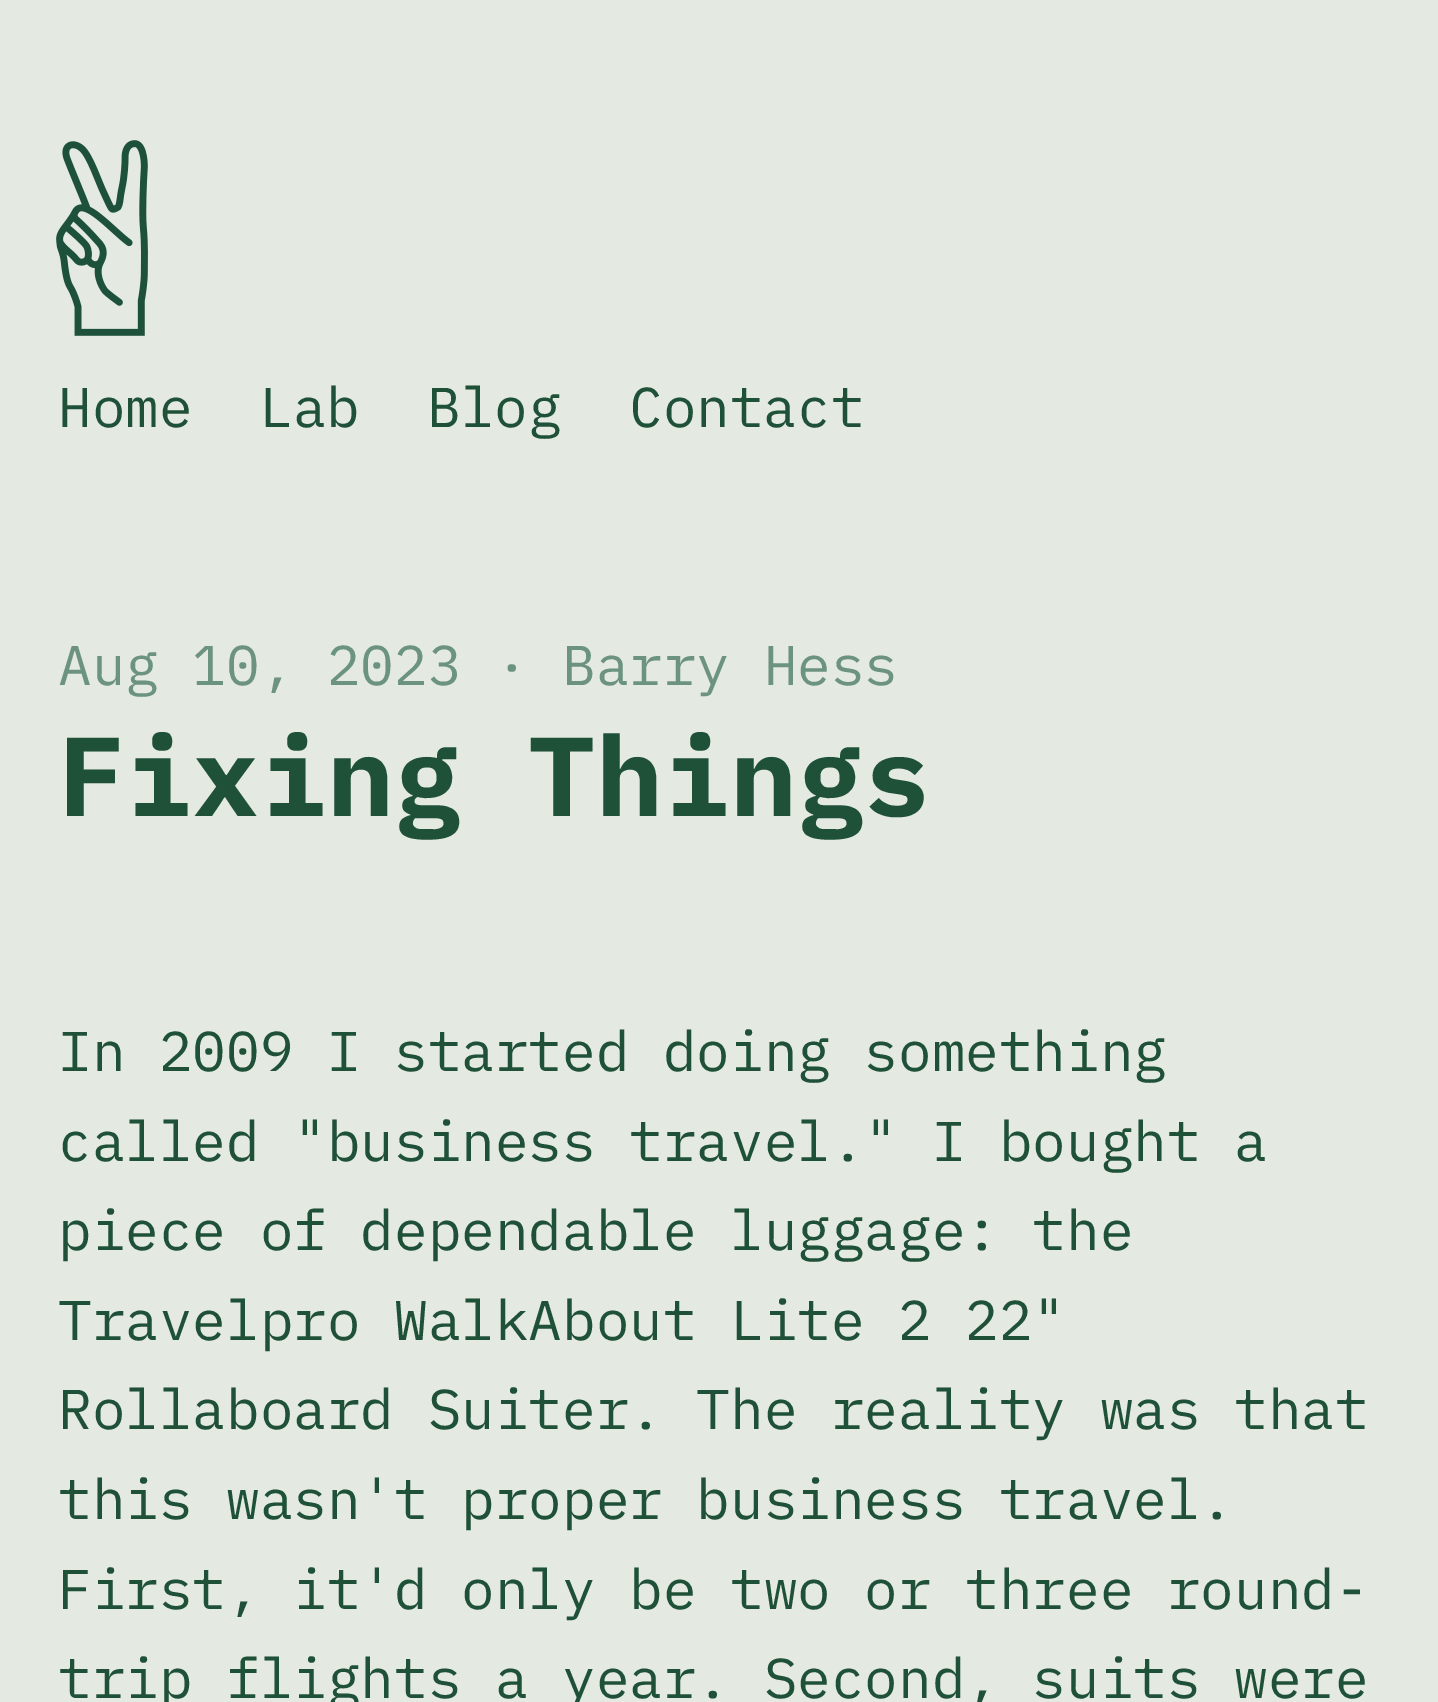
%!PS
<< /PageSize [1438 1702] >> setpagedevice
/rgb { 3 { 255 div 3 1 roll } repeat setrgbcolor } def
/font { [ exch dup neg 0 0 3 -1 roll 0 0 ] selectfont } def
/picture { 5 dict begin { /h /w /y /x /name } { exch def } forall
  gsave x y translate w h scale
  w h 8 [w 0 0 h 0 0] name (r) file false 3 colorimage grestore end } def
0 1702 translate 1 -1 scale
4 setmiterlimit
228 233 226 rgb
0 0 1438 1702 rectfill
(img/1.rgb) 56 140 92 196 picture
/IBMPlexMono-Regular 56 font
31 81 56 rgb
[
  [(Home) 58 427]
  [(Lab) 259 427]
  [(Blog) 427 427]
  [(Contact) 629 427]
] { aload pop moveto show } forall
108 147 128 rgb
58 685 moveto (Aug 10, 2023 · Barry Hess) show
/IBMPlexMono-Bold 112 font
31 81 56 rgb
58 816 moveto (Fixing Things) show
/IBMPlexMono-Regular 56 font
[
  [(In 2009 I started doing something) 58 1071]
  [(called "business travel." I bought a) 58 1161]
  [(piece of dependable luggage: the) 58 1250]
  [(Travelpro WalkAbout Lite 2 22") 58 1340]
  [(Rollaboard Suiter. The reality was that) 58 1429]
  [(this wasn't proper business travel.) 58 1519]
  [(First, it'd only be two or three round-) 58 1609]
  [(trip flights a year. Second, suits were) 58 1698]
] { aload pop moveto show } forall
showpage
